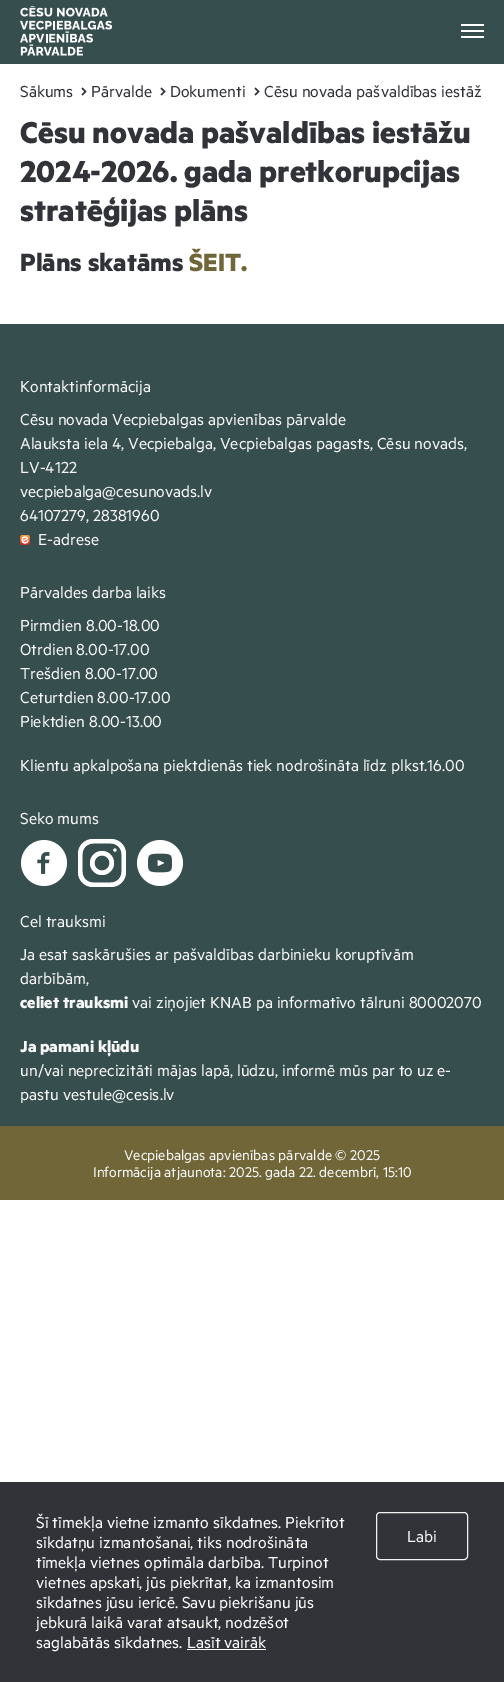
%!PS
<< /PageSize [504 1682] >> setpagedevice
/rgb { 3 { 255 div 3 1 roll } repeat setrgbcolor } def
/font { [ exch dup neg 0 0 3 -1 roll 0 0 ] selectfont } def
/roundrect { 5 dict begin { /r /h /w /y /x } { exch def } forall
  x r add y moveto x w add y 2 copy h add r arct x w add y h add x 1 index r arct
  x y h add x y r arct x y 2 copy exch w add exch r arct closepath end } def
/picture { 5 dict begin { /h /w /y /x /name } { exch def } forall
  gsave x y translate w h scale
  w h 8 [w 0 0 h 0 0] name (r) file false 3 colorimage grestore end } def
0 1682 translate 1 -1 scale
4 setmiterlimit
255 255 255 rgb
0 0 504 1682 rectfill
55 78 79 rgb
0 0 504 64 rectfill
(img/1.rgb) 20 6 92 50 picture
[
  [461 24 23 2 255 255 255]
  [461 30 23 2 255 255 255]
  [461 36 23 2 255 255 255]
] { aload pop rgb rectfill } forall
(img/2.rgb) 81 87 6 9 picture
(img/2.rgb) 160 87 6 9 picture
(img/2.rgb) 254 87 6 9 picture
55 78 79 rgb
0 324 504 802 rectfill
(img/3.rgb) 20 535 10 10 picture
(img/4.rgb) 21 840 46 46 picture
(img/5.rgb) 78 839 48 48 picture
(img/6.rgb) 137 840 46 46 picture
[
  [0 1126 504 74 112 102 56]
  [0 1482 504 200 49 51 56]
  [187 1649 79 1 255 255 255]
] { aload pop rgb rectfill } forall
242 242 242 rgb
376.5 1512.5 91 47 3.5 roundrect stroke
/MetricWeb-Regular 18 font
49 51 56 rgb
[
  [(Sākums) 20 97]
  [(Pārvalde) 91 97]
  [(Dokumenti) 170 97]
  [(Cēsu novada pašvaldības iestāž) 264 97]
] { aload pop moveto show } forall
/MetricWeb-Bold 34 font
[
  [(Cēsu novada pašvaldības iestāžu) 20 143]
  [(2024-2026. gada pretkorupcijas) 20 182]
  [(stratēģijas plāns) 20 221]
] { aload pop moveto show } forall
/MetricWeb-Bold 28 font
20 271 moveto (Plāns skatāms) show
112 102 56 rgb
189 271 moveto (ŠEIT.) show
/MetricWeb-Regular 18 font
247 247 247 rgb
[
  [(Kontaktinformācija) 20 392]
  [(Cēsu novada Vecpiebalgas apvienības pārvalde) 20 425]
  [(Alauksta iela 4, Vecpiebalga, Vecpiebalgas pagasts, Cēsu novads,) 20 449]
  [(LV-4122) 20 473]
  [(vecpiebalga@cesunovads.lv) 20 497]
  [(64107279, 28381960) 20 521]
  [(E-adrese) 38 545]
  [(Pārvaldes darba laiks) 20 598]
  [(Pirmdien 8.00-18.00) 20 631]
  [(Otrdien 8.00-17.00) 20 655]
  [(Trešdien 8.00-17.00) 20 679]
  [(Ceturtdien 8.00-17.00) 20 703]
  [(Piektdien 8.00-13.00) 20 727]
  [(Klientu apkalpošana piektdienās tiek nodrošināta līdz plkst.16.00) 20 771]
  [(Seko mums) 20 824]
  [(Cel trauksmi) 20 927]
  [(Ja esat saskārušies ar pašvaldības darbinieku koruptīvām) 20 960]
  [(darbībām,) 20 984]
] { aload pop moveto show } forall
/MetricWeb-Bold 18 font
20 1008 moveto (celiet trauksmi) show
/MetricWeb-Regular 18 font
132 1008 moveto (vai ziņojiet KNAB pa informatīvo tālruni 80002070) show
/MetricWeb-Bold 18 font
20 1052 moveto (Ja pamani kļūdu) show
/MetricWeb-Regular 18 font
20 1076 moveto (un/vai neprecizitāti mājas lapā, lūdzu, informē mūs par to uz e-) show
20 1100 moveto (pastu vestule@cesis.lv) show
/MetricWeb-Regular 16 font
124 1160 moveto (Vecpiebalgas apvienības pārvalde © 2025) show
93 1177 moveto (Informācija atjaunota: 2025. gada 22. decembrī, 15:10) show
/MetricWeb-Regular 18 font
255 255 255 rgb
[
  [(Šī tīmekļa vietne izmanto sīkdatnes. Piekrītot) 36 1528]
  [(sīkdatņu izmantošanai, tiks nodrošināta) 36 1548]
  [(tīmekļa vietnes optimāla darbība. Turpinot) 36 1568]
  [(vietnes apskati, jūs piekrītat, ka izmantosim) 36 1588]
  [(sīkdatnes jūsu ierīcē. Savu piekrišanu jūs) 36 1608]
  [(jebkurā laikā varat atsaukt, nodzēšot) 36 1628]
  [(saglabātās sīkdatnes. Lasīt vairāk) 36 1648]
] { aload pop moveto show } forall
247 247 247 rgb
407 1542 moveto (Labi) show
showpage
